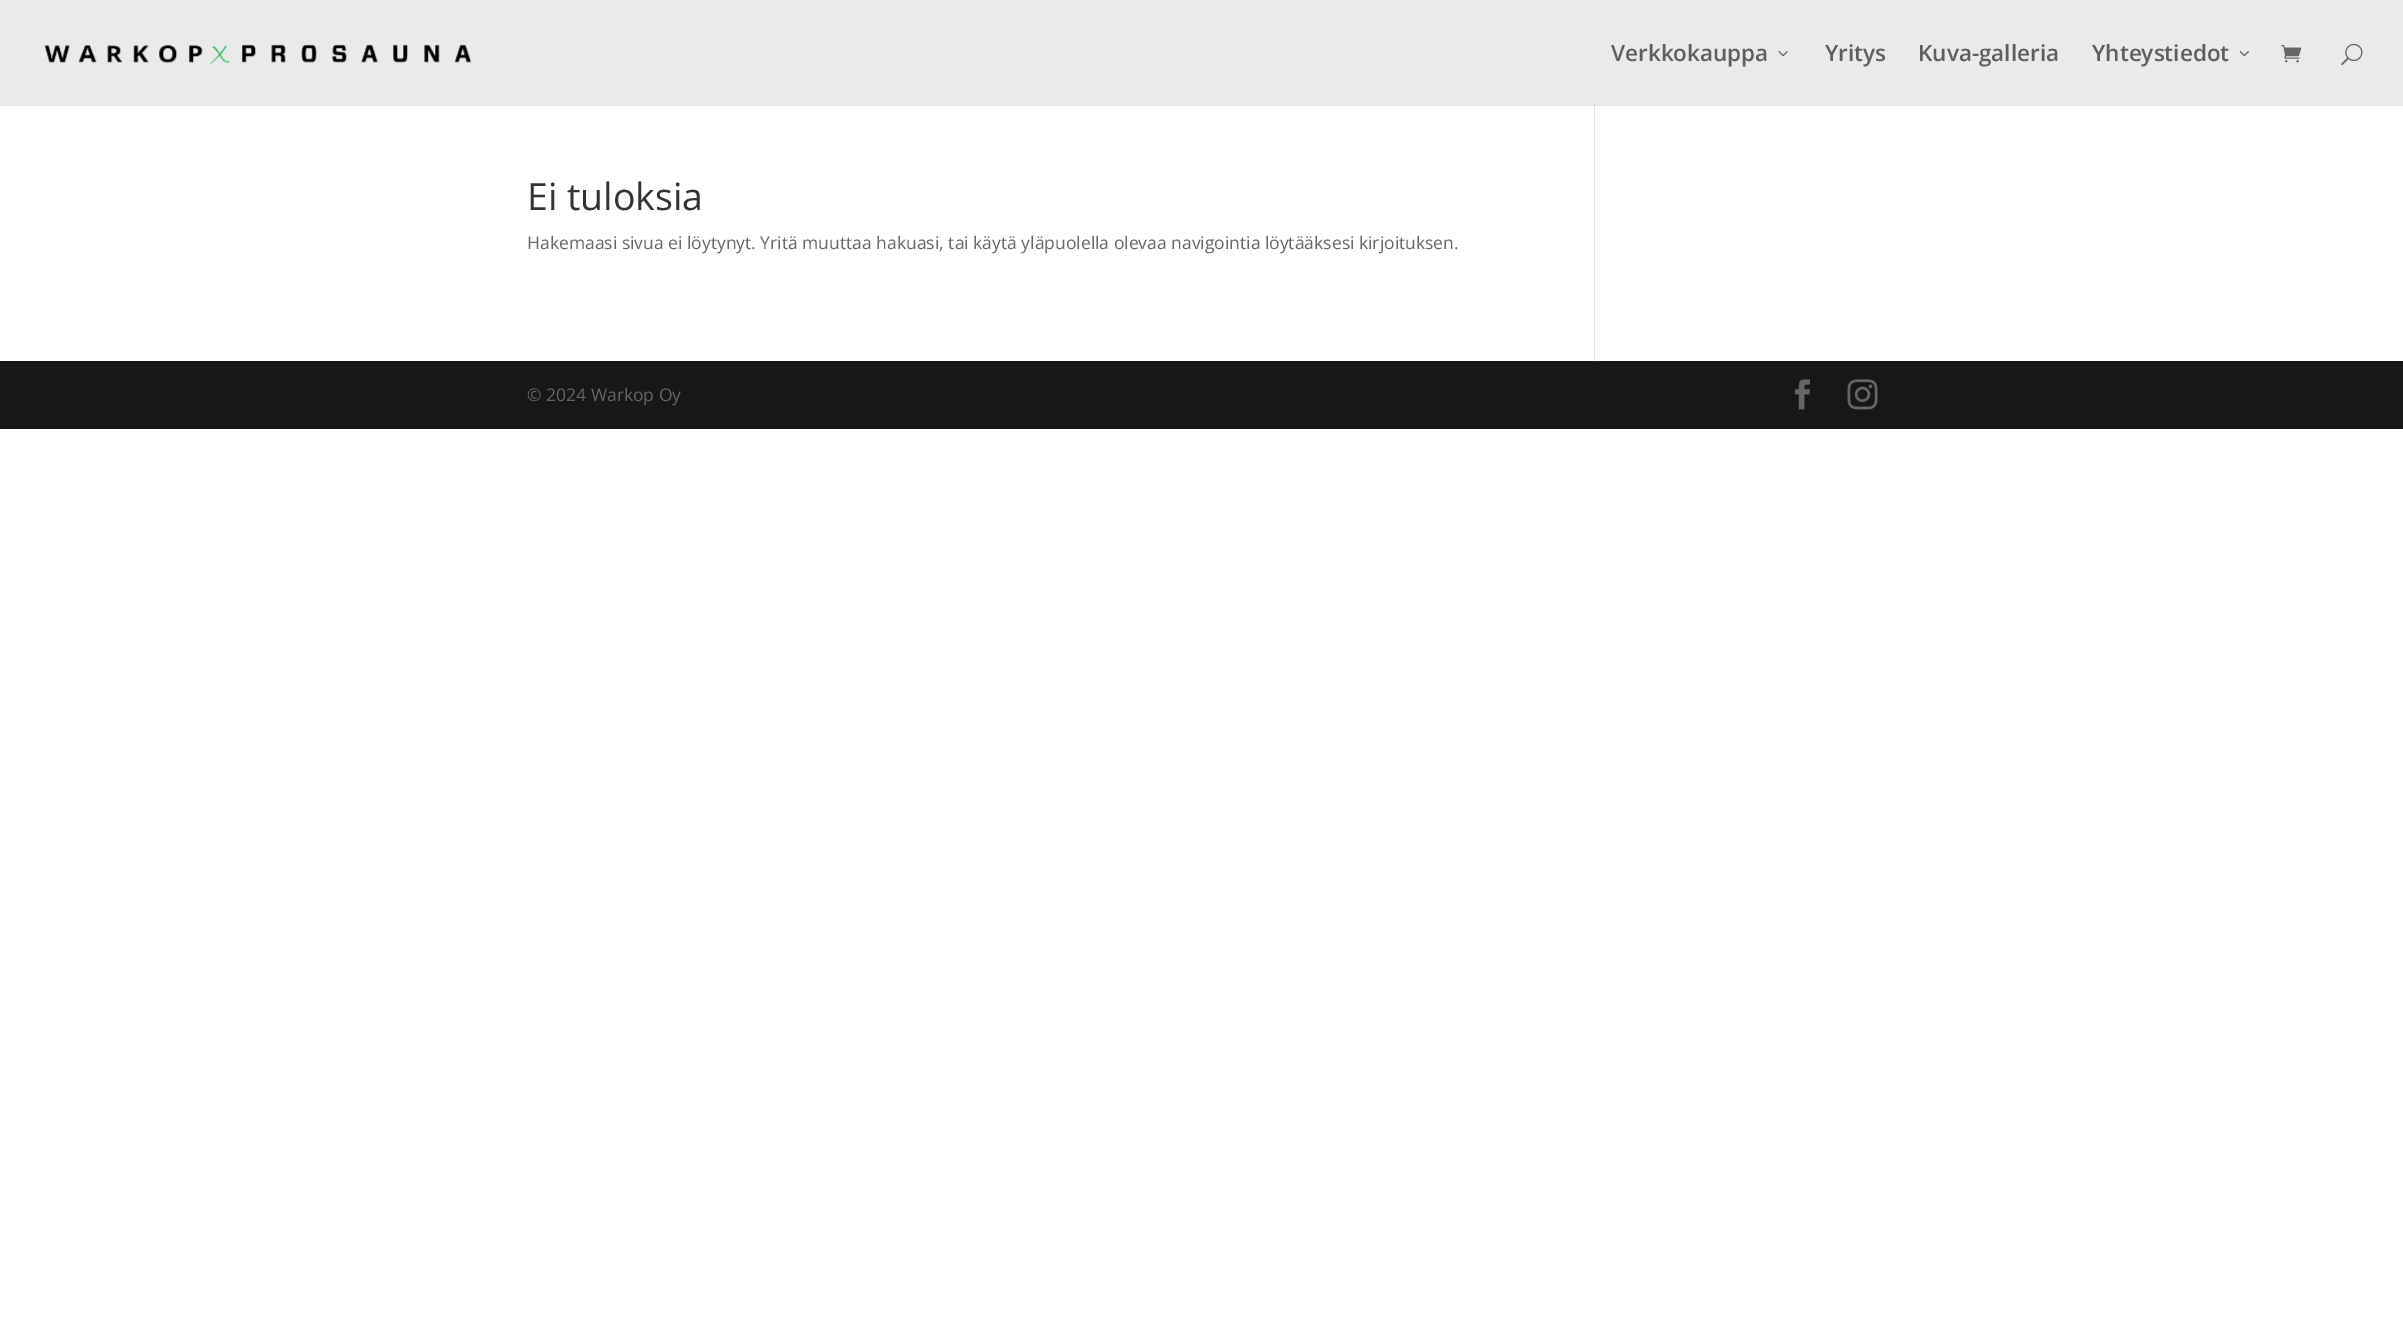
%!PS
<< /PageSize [2403 1324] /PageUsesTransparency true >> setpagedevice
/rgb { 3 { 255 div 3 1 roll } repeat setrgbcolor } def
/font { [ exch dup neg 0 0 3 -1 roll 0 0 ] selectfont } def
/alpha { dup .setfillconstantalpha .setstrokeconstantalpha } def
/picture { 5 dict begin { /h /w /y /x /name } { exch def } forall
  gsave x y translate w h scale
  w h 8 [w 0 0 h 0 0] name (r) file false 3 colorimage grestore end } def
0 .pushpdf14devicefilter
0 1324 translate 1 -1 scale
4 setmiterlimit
255 255 255 rgb
0 0 2403 1324 rectfill
226 226 226 rgb
1594 105 1 256 rectfill
0.1 alpha
0 0 0 rgb
0 105 moveto 0 106 lineto 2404 106 lineto 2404 1 lineto 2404 105 lineto closepath fill
1 alpha
234 234 234 rgb
0 0 2403 105 rectfill
(img/1.rgb) 44 44 428 21 picture
(img/2.rgb) 1778 51 10 6 picture
(img/3.rgb) 2239 51 10 6 picture
(img/4.rgb) 2281 45 21 18 picture
(img/5.rgb) 2341 43 22 23 picture
23 23 23 rgb
0 361 2403 68 rectfill
(img/6.rgb) 1795 379 15 31 picture
(img/7.rgb) 1847 379 31 31 picture
/OpenSans-SemiBold 22.5 font
94 94 94 rgb
[
  [(Verkkokauppa) 1611 61]
  [(Yritys) 1825 61]
  [(Kuva-galleria) 1918 61]
  [(Yhteystiedot) 2092 61]
] { aload pop moveto show } forall
/OpenSans-Regular 37.5 font
51 51 51 rgb
527 210 moveto (Ei tuloksia) show
/OpenSans-Regular 17.5 font
102 102 102 rgb
527 249 moveto (Hakemaasi sivua ei löytynyt. Yritä muuttaa hakuasi, tai käytä yläpuolella olevaa navigointia löytääksesi kirjoituksen.) show
527 401 moveto (© 2024 Warkop Oy) show
.poppdf14devicefilter showpage
